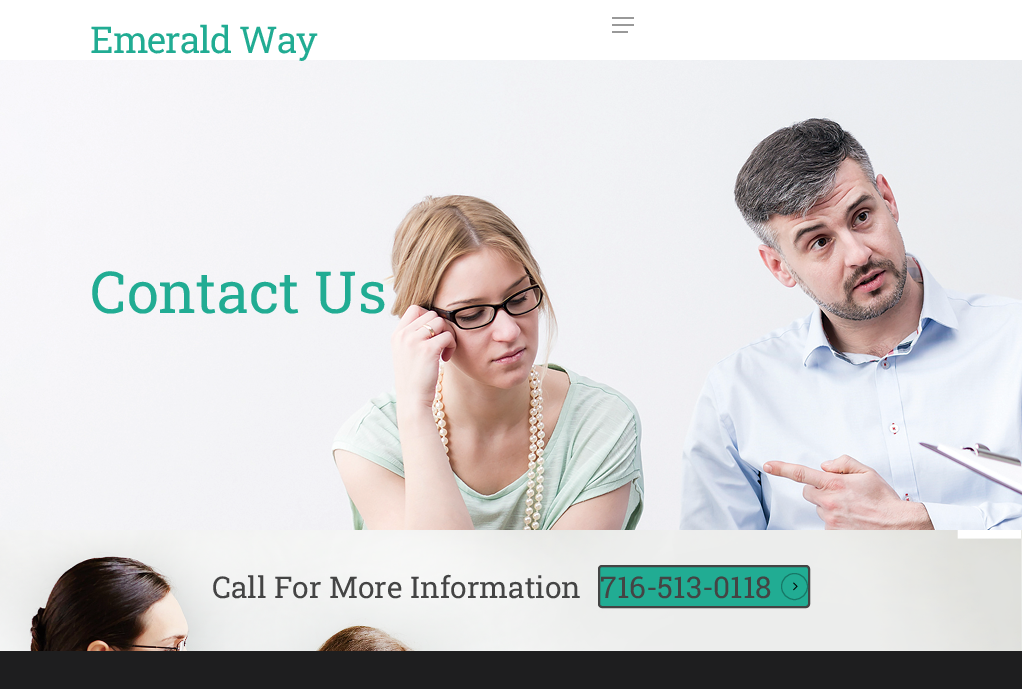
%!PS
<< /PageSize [1022 689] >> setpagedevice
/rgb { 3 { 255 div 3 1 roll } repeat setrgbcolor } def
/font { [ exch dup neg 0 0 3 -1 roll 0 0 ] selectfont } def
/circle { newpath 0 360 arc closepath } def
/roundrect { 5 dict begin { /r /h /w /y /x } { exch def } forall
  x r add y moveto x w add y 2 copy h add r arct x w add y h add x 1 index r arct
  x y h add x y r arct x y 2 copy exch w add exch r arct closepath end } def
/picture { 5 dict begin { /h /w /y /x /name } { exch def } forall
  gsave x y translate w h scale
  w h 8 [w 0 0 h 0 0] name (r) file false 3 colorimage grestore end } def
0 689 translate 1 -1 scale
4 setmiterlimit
255 255 255 rgb
0 0 1022 689 rectfill
[
  [612 17 22 2 153 153 153]
  [612 31 16 2 153 153 153]
  [612 24 22 2 153 153 153]
] { aload pop rgb rectfill } forall
(img/1.rgb) 0 60 1022 470 picture
(img/2.rgb) 0 530 1022 121 picture
33 172 147 rgb
599 566 210 41 3 roundrect gsave fill grestore
68 68 68 rgb
2 setlinewidth
stroke
(img/3.rgb) 793 582 5 9 picture
23 120 103 rgb
1 setlinewidth
794.5 586.5 13 circle stroke
30 30 31 rgb
0 651 1022 38 rectfill
/RobotoSlab-Regular 37 font
33 172 147 rgb
90 53 moveto -1 0 (Emerald Way) ashow
/RobotoSlab-Regular 58 font
90 313 moveto (Contact Us) show
/RobotoSlab-Regular 30 font
68 68 68 rgb
212 598 moveto (Call For More Information) show
600 598 moveto (716-513-0118) show
showpage
